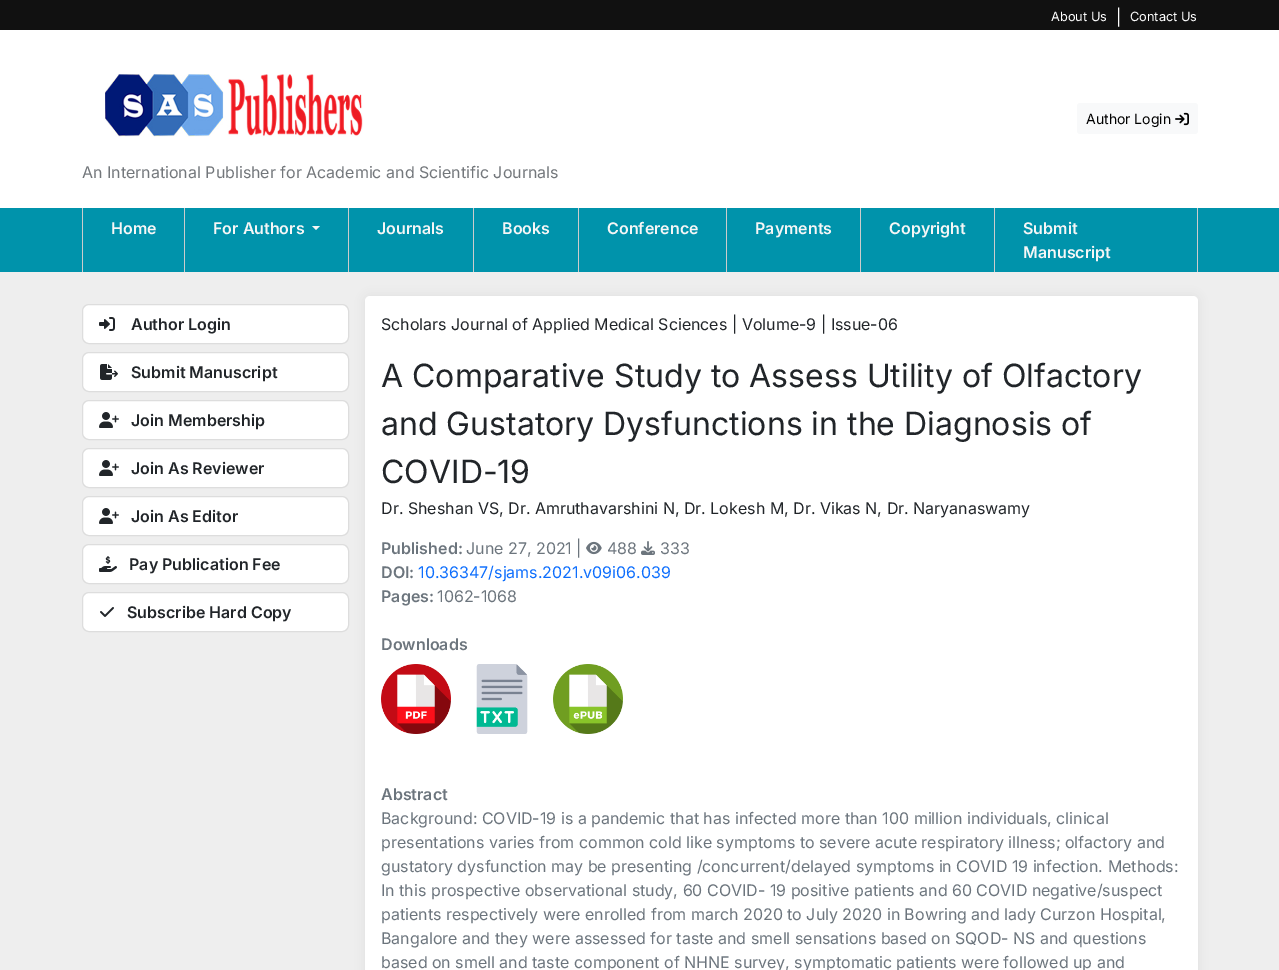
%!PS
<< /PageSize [1279 970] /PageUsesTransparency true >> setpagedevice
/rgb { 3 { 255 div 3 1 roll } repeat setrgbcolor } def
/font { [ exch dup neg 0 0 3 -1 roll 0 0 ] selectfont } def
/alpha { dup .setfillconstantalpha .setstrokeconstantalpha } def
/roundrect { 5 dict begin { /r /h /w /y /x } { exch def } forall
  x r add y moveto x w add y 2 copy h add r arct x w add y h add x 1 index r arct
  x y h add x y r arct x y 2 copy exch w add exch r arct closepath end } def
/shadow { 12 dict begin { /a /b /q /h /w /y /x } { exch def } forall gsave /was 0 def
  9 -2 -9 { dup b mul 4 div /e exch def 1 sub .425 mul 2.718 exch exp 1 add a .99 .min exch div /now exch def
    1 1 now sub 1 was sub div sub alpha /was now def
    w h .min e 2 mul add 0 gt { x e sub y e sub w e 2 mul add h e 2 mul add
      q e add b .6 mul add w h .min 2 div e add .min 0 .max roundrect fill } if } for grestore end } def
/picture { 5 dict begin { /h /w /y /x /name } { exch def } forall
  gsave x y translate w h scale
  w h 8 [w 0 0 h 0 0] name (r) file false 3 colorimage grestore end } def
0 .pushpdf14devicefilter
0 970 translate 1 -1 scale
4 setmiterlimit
238 238 238 rgb
0 0 1279 970 rectfill
17 17 17 rgb
0 0 1279 30 rectfill
255 255 255 rgb
0 30 1279 178 rectfill
248 249 250 rgb
1077 103 121 31 3 roundrect fill
(img/1.rgb) 1175 112 14 14 picture
(img/2.rgb) 105 74 258 63 picture
[
  [0 208 1279 64 0 147 171]
  [82 208 1 64 204 204 204]
  [184 208 1 64 204 204 204]
] { aload pop rgb rectfill } forall
246 246 246 rgb
312 226 moveto 320 226 lineto 316 230 lineto closepath fill
[
  [348 208 1 64 204 204 204]
  [473 208 1 64 204 204 204]
  [578 208 1 64 204 204 204]
  [726 208 1 64 204 204 204]
  [860 208 1 64 204 204 204]
  [1197 208 1 64 204 204 204]
  [994 208 1 64 204 204 204]
] { aload pop rgb rectfill } forall
255 255 255 rgb
82.5 304.5 266 39 6.5 roundrect gsave fill grestore
221 221 221 rgb
stroke
(img/3.rgb) 99 317 16 14 picture
255 255 255 rgb
82.5 352.5 266 39 6.5 roundrect gsave fill grestore
221 221 221 rgb
stroke
(img/4.rgb) 100 364 18 16 picture
255 255 255 rgb
82.5 400.5 266 39 6.5 roundrect gsave fill grestore
221 221 221 rgb
stroke
(img/5.rgb) 99 412 20 16 picture
255 255 255 rgb
82.5 448.5 266 39 6.5 roundrect gsave fill grestore
221 221 221 rgb
stroke
(img/5.rgb) 99 460 20 16 picture
255 255 255 rgb
82.5 496.5 266 39 6.5 roundrect gsave fill grestore
221 221 221 rgb
stroke
(img/5.rgb) 99 508 20 16 picture
255 255 255 rgb
82.5 544.5 266 39 6.5 roundrect gsave fill grestore
221 221 221 rgb
stroke
(img/6.rgb) 99 556 18 16 picture
255 255 255 rgb
82.5 592.5 266 39 6.5 roundrect gsave fill grestore
221 221 221 rgb
stroke
(img/7.rgb) 100 607 14 10 picture
365 296 833 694 5 5 1 shadow
255 255 255 rgb
365 296 833 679 5 roundrect fill
(img/8.rgb) 586 541 16 14 picture
(img/9.rgb) 641 541 14 14 picture
(img/10.rgb) 381 664 70 70 picture
(img/11.rgb) 476 664 52 70 picture
(img/12.rgb) 553 664 70 70 picture
/Inter-Regular 12.75 font
1051 21 moveto (About Us) show
/Inter-Regular 16 font
1116 23 moveto (|) show
/Inter-Regular 12.75 font
1130 21 moveto (Contact Us) show
/Inter-Regular 14 font
0 0 0 rgb
1086 124 moveto (Author Login) show
/Inter-Regular 16 font
115 119 123 rgb
82 178 moveto (An International Publisher for Academic and Scientific Journals) show
/Inter-SemiBold 16 font
246 246 246 rgb
[
  [(Home) 111 234]
  [(For Authors) 213 234]
  [(Journals) 377 234]
  [(Books) 502 234]
  [(Conference) 607 234]
  [(Payments) 755 234]
  [(Copyright) 889 234]
  [(Submit) 1023 234]
  [(Manuscript) 1023 258]
] { aload pop moveto show } forall
33 37 41 rgb
[
  [(Author Login) 131 330]
  [(Submit Manuscript) 131 378]
  [(Join Membership) 131 426]
  [(Join As Reviewer) 131 474]
  [(Join As Editor) 131 522]
  [(Pay Publication Fee) 129 570]
  [(Subscribe Hard Copy) 127 618]
] { aload pop moveto show } forall
/Inter-Regular 16 font
381 330 moveto (Scholars Journal of Applied Medical Sciences | Volume-9 | Issue-06) show
/Inter-Regular 32 font
[
  [(A Comparative Study to Assess Utility of Olfactory) 381 387]
  [(and Gustatory Dysfunctions in the Diagnosis of) 381 435]
  [(COVID-19) 381 483]
] { aload pop moveto show } forall
/Inter-Regular 16 font
381 514 moveto (Dr. Sheshan VS, Dr. Amruthavarshini N, Dr. Lokesh M, Dr. Vikas N, Dr. Naryanaswamy) show
/Inter-SemiBold 16 font
108 117 125 rgb
381 554 moveto (Published:) show
/Inter-Regular 16 font
[
  [(June 27, 2021 |) 466 554]
  [(488) 607 554]
  [(333) 660 554]
] { aload pop moveto show } forall
/Inter-SemiBold 16 font
381 578 moveto (DOI:) show
/Inter-Regular 16 font
13 110 253 rgb
418 578 moveto (10.36347/sjams.2021.v09i06.039) show
/Inter-SemiBold 16 font
108 117 125 rgb
381 602 moveto (Pages:) show
/Inter-Regular 16 font
437 602 moveto (1062-1068) show
/Inter-SemiBold 16 font
381 650 moveto (Downloads) show
381 800 moveto (Abstract) show
/Inter-Regular 16 font
[
  [(Background: COVID-19 is a pandemic that has infected more than 100 million individuals, clinical) 381 824]
  [(presentations varies from common cold like symptoms to severe acute respiratory illness; olfactory and) 381 848]
  [(gustatory dysfunction may be presenting /concurrent/delayed symptoms in COVID 19 infection. Methods:) 381 872]
  [(In this prospective observational study, 60 COVID- 19 positive patients and 60 COVID negative/suspect) 381 896]
  [(patients respectively were enrolled from march 2020 to July 2020 in Bowring and lady Curzon Hospital,) 381 920]
  [(Bangalore and they were assessed for taste and smell sensations based on SQOD- NS and questions) 381 944]
  [(based on smell and taste component of NHNE survey, symptomatic patients were followed up and) 381 968]
] { aload pop moveto show } forall
.poppdf14devicefilter showpage
